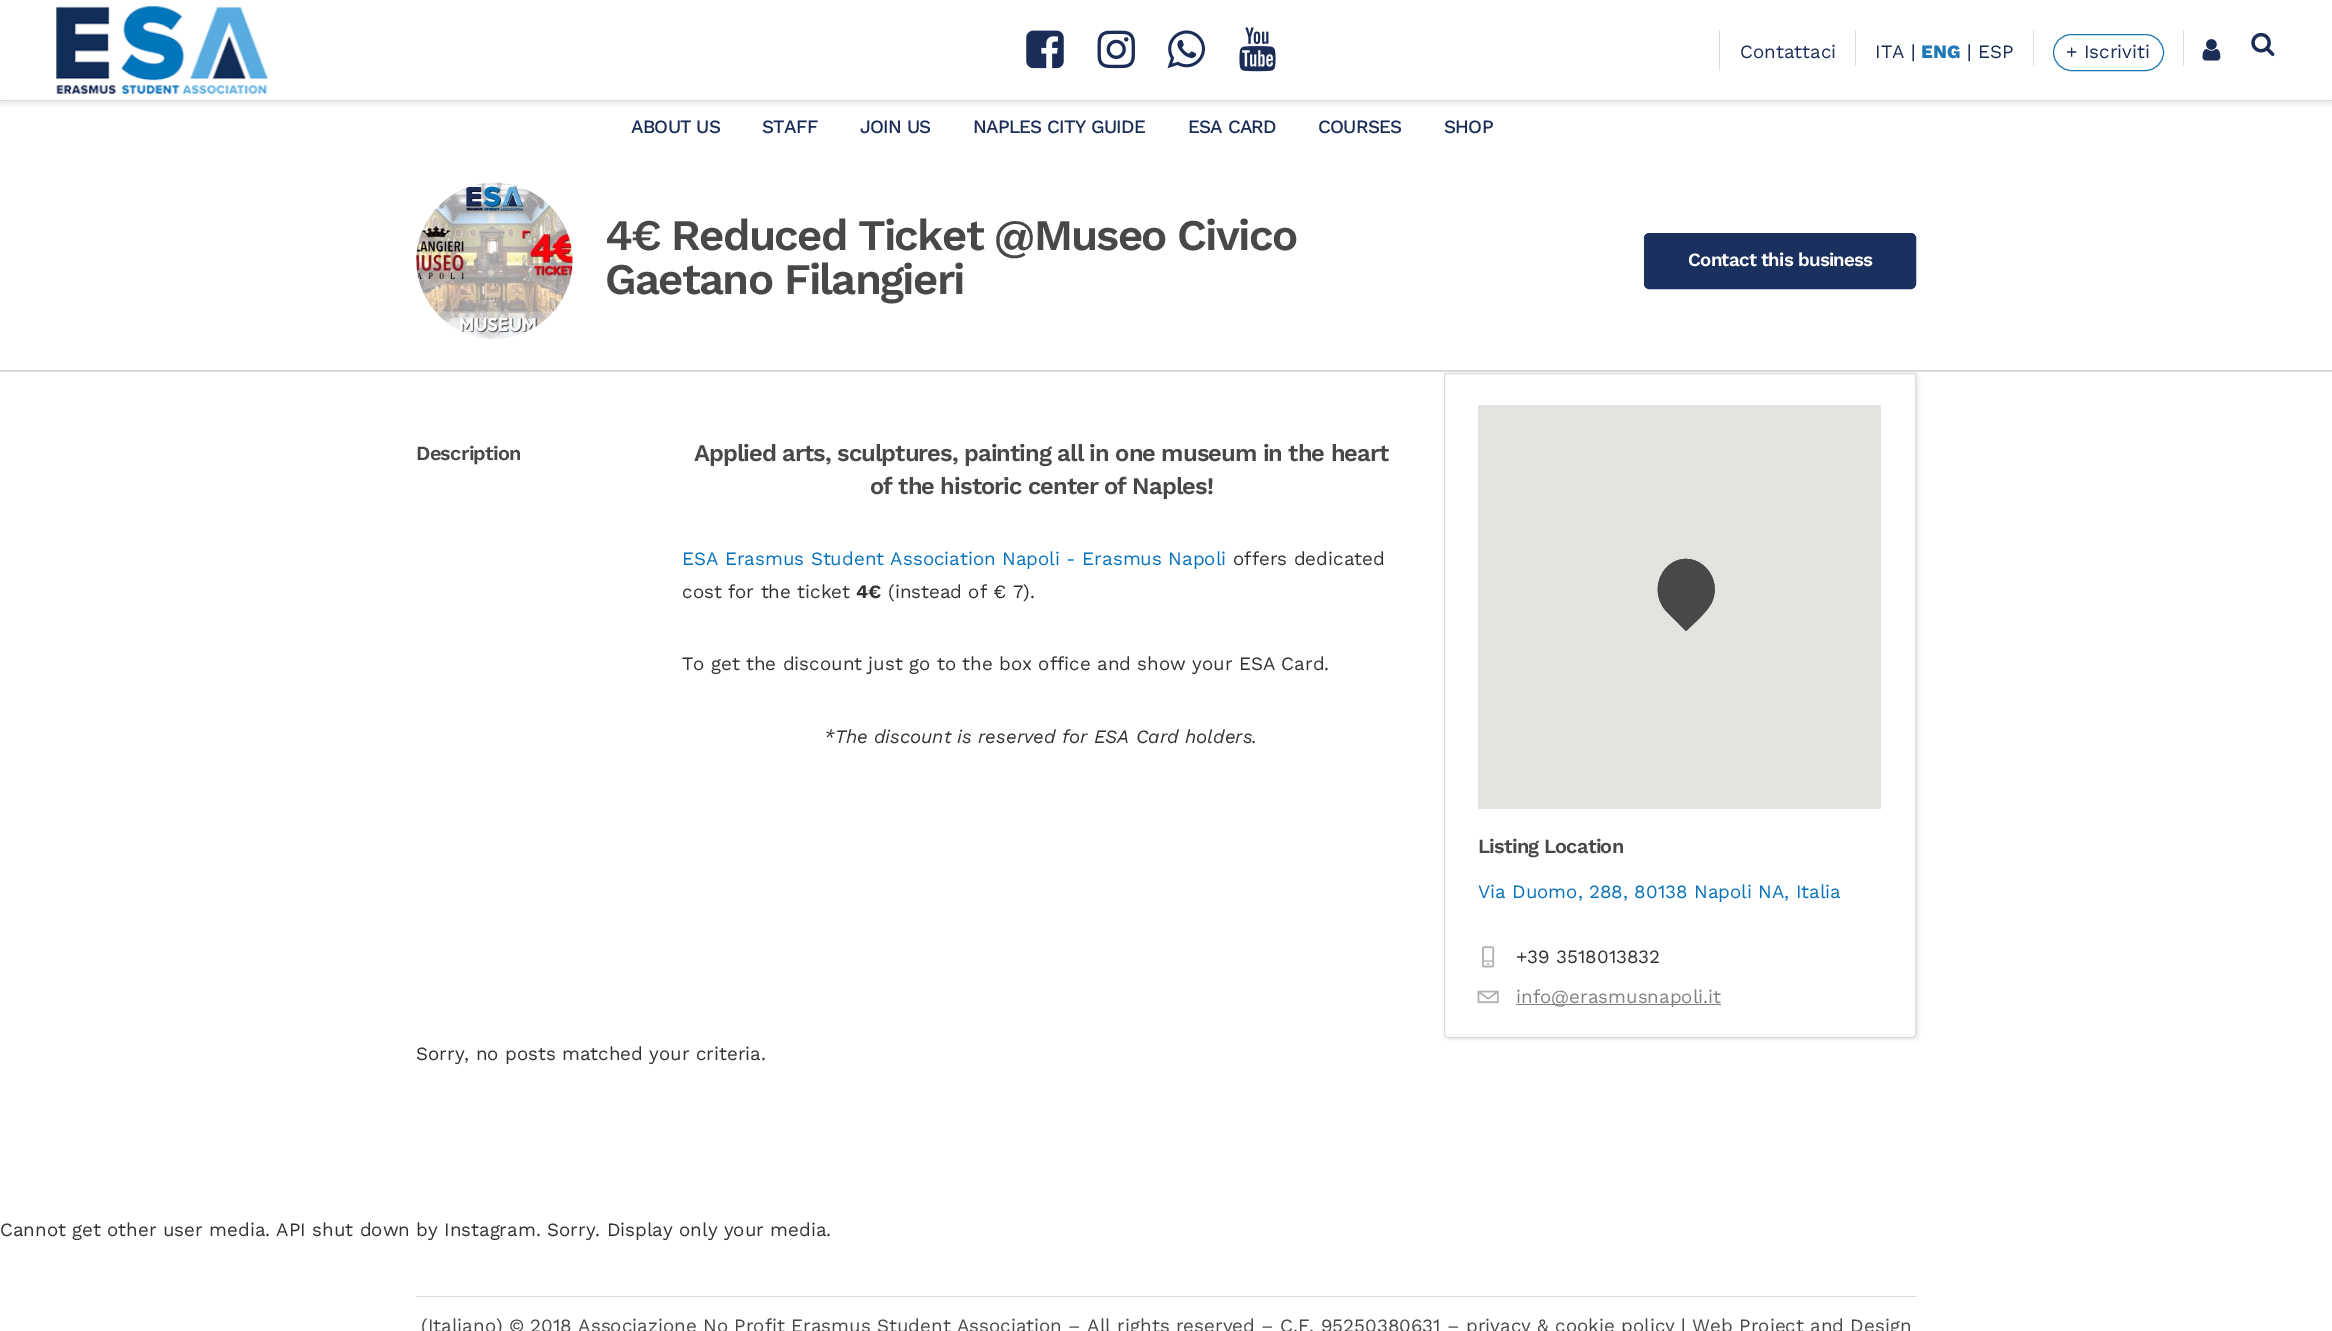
%!PS
<< /PageSize [2332 1331] /PageUsesTransparency true >> setpagedevice
/rgb { 3 { 255 div 3 1 roll } repeat setrgbcolor } def
/font { [ exch dup neg 0 0 3 -1 roll 0 0 ] selectfont } def
/alpha { dup .setfillconstantalpha .setstrokeconstantalpha } def
/roundrect { 5 dict begin { /r /h /w /y /x } { exch def } forall
  x r add y moveto x w add y 2 copy h add r arct x w add y h add x 1 index r arct
  x y h add x y r arct x y 2 copy exch w add exch r arct closepath end } def
/shadow { 12 dict begin { /a /b /q /h /w /y /x } { exch def } forall gsave /was 0 def
  9 -2 -9 { dup b mul 4 div /e exch def 1 sub .425 mul 2.718 exch exp 1 add a .99 .min exch div /now exch def
    1 1 now sub 1 was sub div sub alpha /was now def
    w h .min e 2 mul add 0 gt { x e sub y e sub w e 2 mul add h e 2 mul add
      q e add b .6 mul add w h .min 2 div e add .min 0 .max roundrect fill } if } for grestore end } def
/picture { 5 dict begin { /h /w /y /x /name } { exch def } forall
  gsave x y translate w h scale
  w h 8 [w 0 0 h 0 0] name (r) file false 3 colorimage grestore end } def
0 .pushpdf14devicefilter
0 1331 translate 1 -1 scale
4 setmiterlimit
255 255 255 rgb
0 0 2332 1331 rectfill
0 0 0 rgb
1 3 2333 101 0 3 0.09 shadow
255 255 255 rgb
0 0 2332 100 rectfill
219 219 219 rgb
0 100 2332 1 rectfill
(img/1.rgb) 56 6 212 88 picture
(img/2.rgb) 1026 30 38 39 picture
(img/3.rgb) 1097 30 38 39 picture
(img/4.rgb) 1167 30 38 39 picture
(img/5.rgb) 1239 27 37 45 picture
[
  [1719 30 1 41 219 219 219]
  [1855 30 1 36 220 220 220]
  [2033 30 1 36 220 220 220]
] { aload pop rgb rectfill } forall
30 121 181 rgb
2053.5 34.5 110 36 18 roundrect stroke
220 220 220 rgb
2183 30 1 36 rectfill
(img/6.rgb) 2202 39 19 22 picture
(img/7.rgb) 2251 32 24 25 picture
219 219 219 rgb
0 370 2332 2 rectfill
(img/8.rgb) 416 182 157 157 picture
26 49 95 rgb
1644.5 233.5 271 55 4.5 roundrect gsave fill grestore
stroke
gsave
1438 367 moveto 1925 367 lineto 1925 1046 lineto 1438 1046 lineto closepath 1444 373 moveto 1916 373 lineto 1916 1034 lineto 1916 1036 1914 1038 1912 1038 curveto 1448 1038 lineto 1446 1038 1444 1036 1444 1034 curveto closepath eoclip newpath
0 0 0 rgb
1445 374 473 665 4 2 0.1 shadow
grestore
219 219 219 rgb
1444.5 373.5 moveto 1915.5 373.5 lineto 1915.5 1034 lineto 1915.5 1036 1914 1037.5 1912 1037.5 curveto 1448 1037.5 lineto 1446 1037.5 1444.5 1036 1444.5 1034 curveto closepath stroke
229 227 223 rgb
1478 405 403 404 rectfill
72 72 72 rgb
1667 567 moveto 1690 545 1724 572 1712 601 curveto 1708 611 1694 623 1686 631 curveto 1667 612 lineto 1655 599 1655 579 1667 567 curveto closepath fill
6.3 setlinewidth
1669 569.5 moveto 1689.5 549 1720 574.5 1709.5 600 curveto 1705.5 609.5 1693.5 619.5 1686 626.5 curveto 1669 609.5 lineto 1658 598.5 1658 580.5 1669 569.5 curveto closepath stroke
(img/9.rgb) 1482 946 13 22 picture
(img/10.rgb) 1477 990 22 14 picture
129 129 129 rgb
1516 1004 205 1 rectfill
219 219 219 rgb
416 1296 1500 1 rectfill
/WorkSans-Regular 18.75 font
27 44 87 rgb
1740 58 moveto (Contattaci) show
1875 58 moveto (ITA |) show
/WorkSans-ExtraBold 18.75 font
30 121 181 rgb
1921 58 moveto (ENG) show
/WorkSans-Regular 18.75 font
27 44 87 rgb
1967 58 moveto (| ESP) show
2066 58 moveto (+ Iscriviti) show
/WorkSans-Medium 18.75 font
631 133 moveto -0.75 0 (ABOUT US) ashow
762 133 moveto -0.75 0 (STAFF) ashow
860 133 moveto -0.75 0 (JOIN US) ashow
973 133 moveto -0.75 0 (NAPLES CITY GUIDE) ashow
1188 133 moveto -0.75 0 (ESA CARD) ashow
1318 133 moveto -0.75 0 (COURSES) ashow
1444 133 moveto -0.75 0 (SHOP) ashow
/WorkSans-SemiBold 43.75 font
72 72 72 rgb
605 250 moveto -1.75 0 (4€ Reduced Ticket @Museo Civico) ashow
605 294 moveto -1.75 0 (Gaetano Filangieri) ashow
/WorkSans-SemiBold 18.75 font
255 255 255 rgb
1688 266 moveto -0.75 0 (Contact this business) ashow
/WorkSans-SemiBold 20 font
72 72 72 rgb
416 460 moveto -0.75 0 (Description) ashow
/WorkSans-SemiBold 23.75 font
694 461 moveto -0.95 0 (Applied arts, sculptures, painting all in one museum in the heart) ashow
870 494 moveto -0.95 0 (of the historic center of Naples!) ashow
/WorkSans-Regular 18.75 font
7 114 188 rgb
682 565 moveto (ESA Erasmus Student Association Napoli - Erasmus Napoli) show
51 51 51 rgb
1233 565 moveto (offers dedicated) show
682 598 moveto (cost for the ticket) show
/WorkSans-Bold 18.75 font
856 598 moveto (4€) show
/WorkSans-Regular 18.75 font
888 598 moveto (\(instead of € 7\).) show
682 670 moveto (To get the discount just go to the box office and show your ESA Card.) show
/WorkSans-Italic 18.75 font
824 743 moveto (*The discount is reserved for ESA Card holders.) show
/WorkSans-SemiBold 20 font
72 72 72 rgb
1478 853 moveto -0.75 0 (Listing Location) ashow
/WorkSans-Regular 18.75 font
7 114 188 rgb
1478 898 moveto (Via Duomo, 288, 80138 Napoli NA, Italia) show
51 51 51 rgb
1516 963 moveto (+39 3518013832) show
129 129 129 rgb
1516 1003 moveto (info@erasmusnapoli.it) show
51 51 51 rgb
416 1060 moveto (Sorry, no posts matched your criteria.) show
0 1236 moveto (Cannot get other user media. API shut down by Instagram. Sorry. Display only your media.) show
72 72 72 rgb
421 1332 moveto (\(Italiano\) © 2018 Associazione No Profit Erasmus Student Association – All rights reserved – C.F. 95250380631 – privacy & cookie policy | Web Project and Design) show
.poppdf14devicefilter showpage
